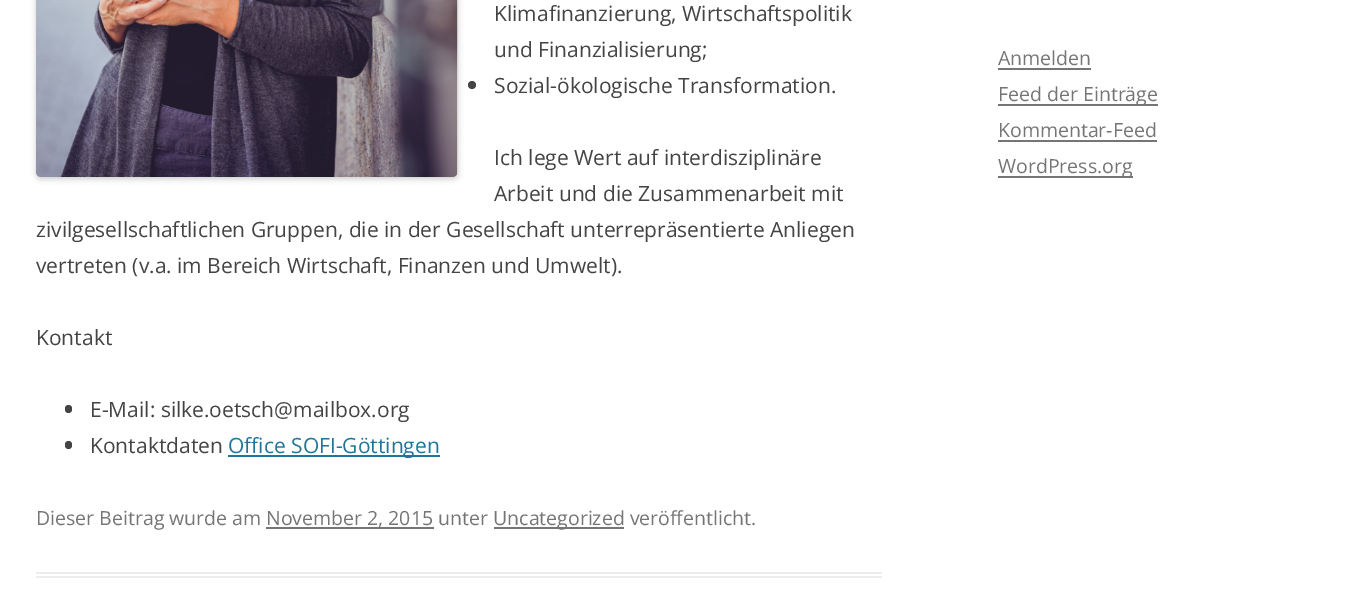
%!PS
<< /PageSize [1372 602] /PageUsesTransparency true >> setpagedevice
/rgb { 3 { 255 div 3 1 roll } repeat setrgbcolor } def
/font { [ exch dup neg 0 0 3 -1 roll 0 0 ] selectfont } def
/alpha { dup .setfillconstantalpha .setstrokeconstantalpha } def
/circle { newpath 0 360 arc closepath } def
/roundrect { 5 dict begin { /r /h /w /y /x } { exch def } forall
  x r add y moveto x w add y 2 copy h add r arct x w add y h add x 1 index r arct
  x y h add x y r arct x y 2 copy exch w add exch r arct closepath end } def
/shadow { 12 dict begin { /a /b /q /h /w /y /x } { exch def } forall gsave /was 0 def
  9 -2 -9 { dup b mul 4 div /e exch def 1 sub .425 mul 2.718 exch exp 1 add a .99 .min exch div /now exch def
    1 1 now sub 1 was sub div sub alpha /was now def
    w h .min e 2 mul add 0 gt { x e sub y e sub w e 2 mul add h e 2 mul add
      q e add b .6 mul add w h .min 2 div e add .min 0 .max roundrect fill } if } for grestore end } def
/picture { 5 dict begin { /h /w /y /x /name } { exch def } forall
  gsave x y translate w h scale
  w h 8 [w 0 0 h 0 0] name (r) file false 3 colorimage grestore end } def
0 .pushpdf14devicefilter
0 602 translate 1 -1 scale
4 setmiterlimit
255 255 255 rgb
0 0 1372 602 rectfill
237 237 237 rgb
36 572 846 2 rectfill
36 576 846 2 rectfill
0 0 0 rgb
36 -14 422 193 5 3 0.2 shadow
(img/1.rgb) 36 0 422 177 picture
68 68 68 rgb
472 85 4 circle fill
65 405 7 8 3.5 roundrect fill
65 441 7 8 3.5 roundrect fill
[
  [228 455 212 2 33 117 155]
  [266 527 168 2 117 117 117]
  [494 527 130 2 117 117 117]
  [998 68 93 2 117 117 117]
  [998 104 160 2 117 117 117]
  [998 140 159 2 117 117 117]
  [998 176 135 2 117 117 117]
] { aload pop rgb rectfill } forall
/OpenSans-Regular 21 font
68 68 68 rgb
[
  [(Klimafinanzierung, Wirtschaftspolitik) 494 21]
  [(und Finanzialisierung;) 494 57]
  [(Sozial-ökologische Transformation.) 494 93]
  [(Ich lege Wert auf interdisziplinäre) 494 165]
  [(Arbeit und die Zusammenarbeit mit) 494 201]
  [(zivilgesellschaftlichen Gruppen, die in der Gesellschaft unterrepräsentierte Anliegen) 36 237]
  [(vertreten \(v.a. im Bereich Wirtschaft, Finanzen und Umwelt\).) 36 273]
  [(Kontakt) 36 345]
  [(E-Mail: silke.oetsch@mailbox.org) 90 417]
  [(Kontaktdaten) 90 453]
] { aload pop moveto show } forall
33 117 155 rgb
228 453 moveto (Office SOFI-Göttingen) show
/OpenSans-Regular 19.5 font
117 117 117 rgb
[
  [(Dieser Beitrag wurde am) 36 525]
  [(November 2, 2015 unter) 266 525]
  [(Uncategorized veröffentlicht.) 493 525]
  [(Anmelden) 998 65]
  [(Feed der Einträge) 998 101]
  [(Kommentar-Feed) 998 137]
  [(WordPress.org) 998 173]
] { aload pop moveto show } forall
.poppdf14devicefilter showpage
